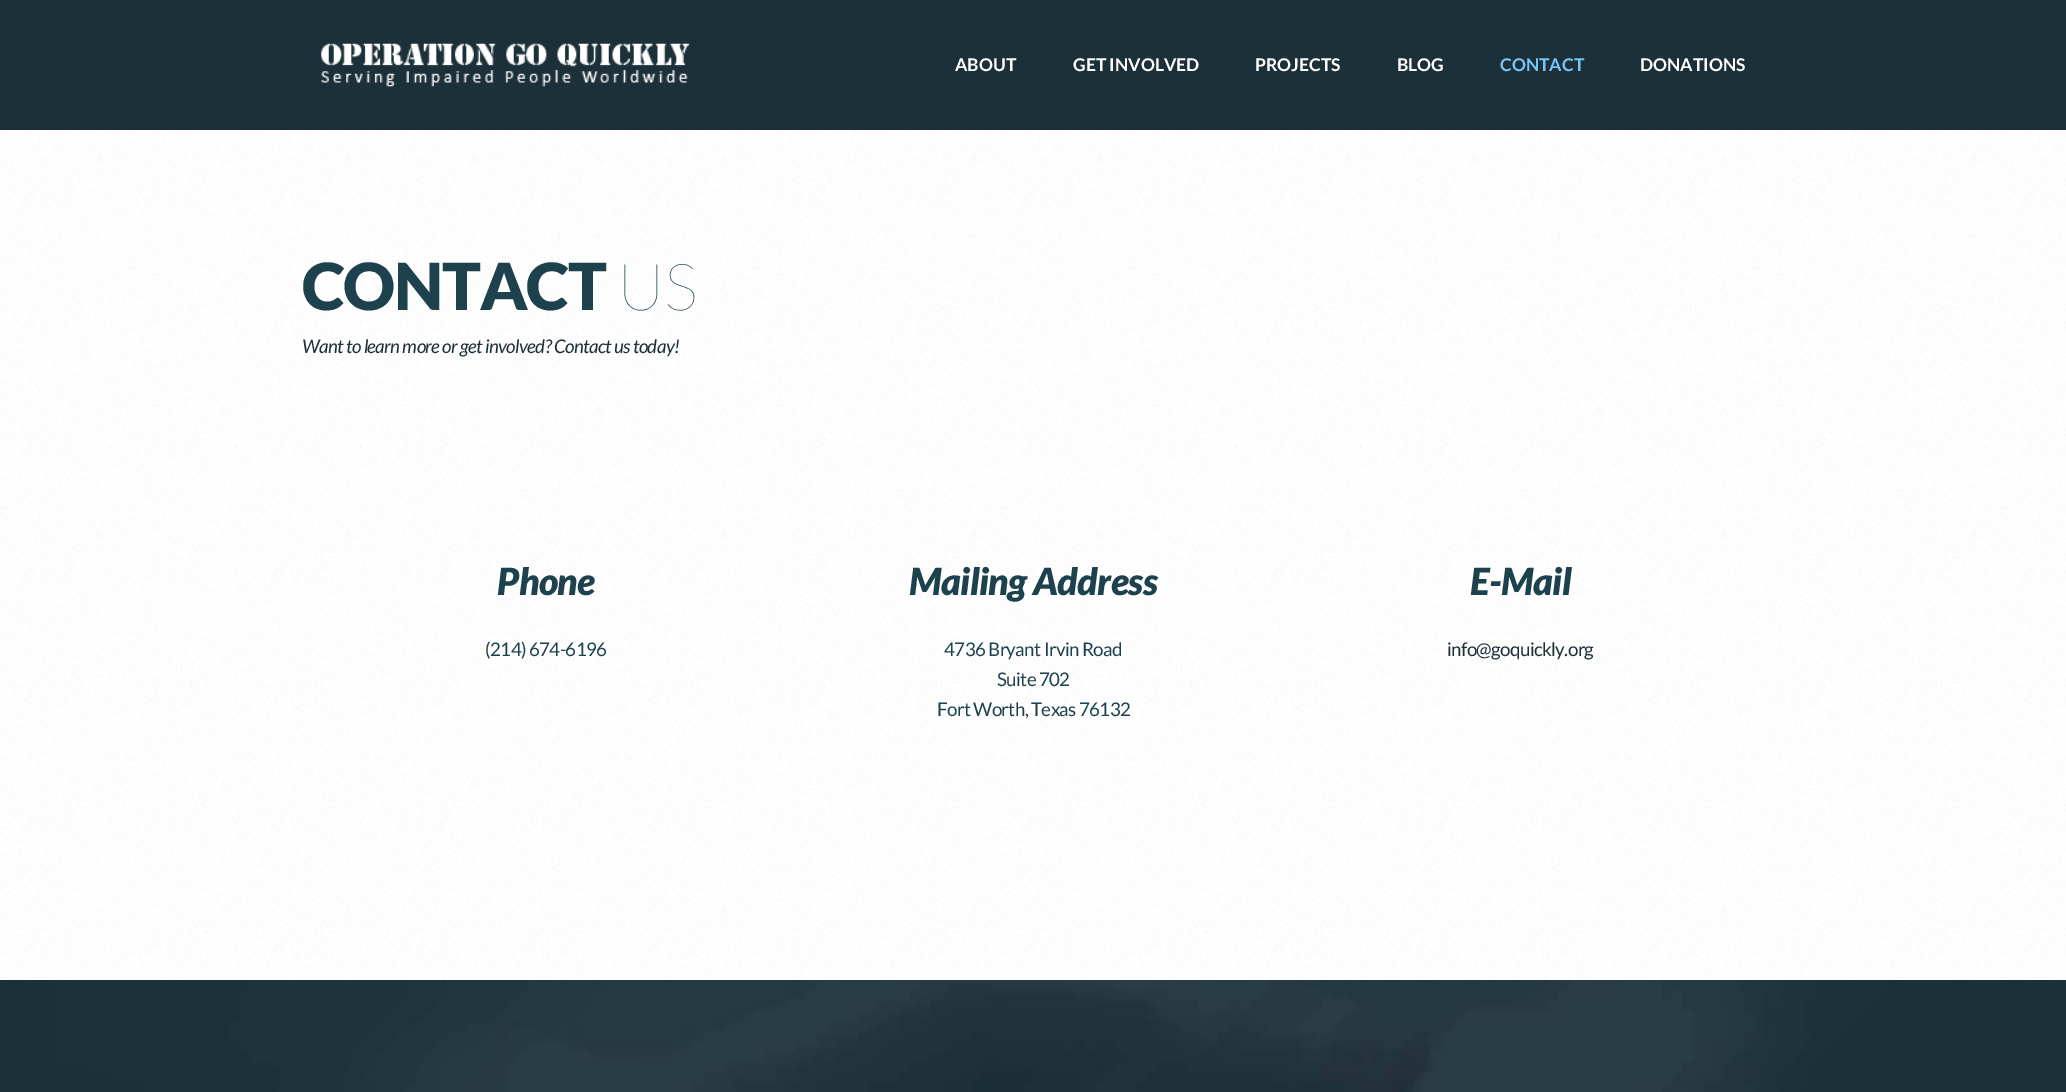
%!PS
<< /PageSize [2066 1092] >> setpagedevice
/rgb { 3 { 255 div 3 1 roll } repeat setrgbcolor } def
/font { [ exch dup neg 0 0 3 -1 roll 0 0 ] selectfont } def
/picture { 5 dict begin { /h /w /y /x /name } { exch def } forall
  gsave x y translate w h scale
  w h 8 [w 0 0 h 0 0] name (r) file false 3 colorimage grestore end } def
0 1092 translate 1 -1 scale
4 setmiterlimit
255 255 255 rgb
0 0 2066 1092 rectfill
(img/1.rgb) 0 130 2066 850 picture
27 48 57 rgb
0 0 2066 130 rectfill
(img/2.rgb) 321 43 369 44 picture
(img/3.rgb) 0 980 2066 112 picture
/Lato-Bold 17.5 font
255 255 255 rgb
[
  [(ABOUT) 955 71]
  [(GET INVOLVED) 1073 71]
  [(PROJECTS) 1255 71]
  [(BLOG) 1397 71]
] { aload pop moveto show } forall
121 197 245 rgb
1500 71 moveto (CONTACT) show
255 255 255 rgb
1640 71 moveto (DONATIONS) show
/Lato-Black 65 font
30 65 78 rgb
302 310 moveto -1.25 0 (CONTACT) ashow
/Lato-Thin 65 font
617 310 moveto -1.25 0 (US) ashow
/Lato-Italic 18.75 font
27 48 57 rgb
302 353 moveto -0.62 0 (Want to learn more or get involved? Contact us today!) ashow
/Lato-BlackItalic 37.5 font
30 65 78 rgb
497 595 moveto -0.62 0 (Phone) ashow
/Lato-Regular 18.75 font
485 656 moveto -0.62 0 (\(214\) 674-6196) ashow
/Lato-BlackItalic 37.5 font
909 595 moveto -0.62 0 (Mailing Address) ashow
/Lato-Regular 18.75 font
944 656 moveto -0.62 0 (4736 Bryant Irvin Road) ashow
997 686 moveto -0.62 0 (Suite 702) ashow
937 716 moveto -0.62 0 (Fort Worth, Texas 76132) ashow
/Lato-BlackItalic 37.5 font
1470 595 moveto -0.62 0 (E-Mail) ashow
/Lato-Regular 18.75 font
27 48 57 rgb
1447 656 moveto -0.62 0 (info@goquickly.org) ashow
showpage
